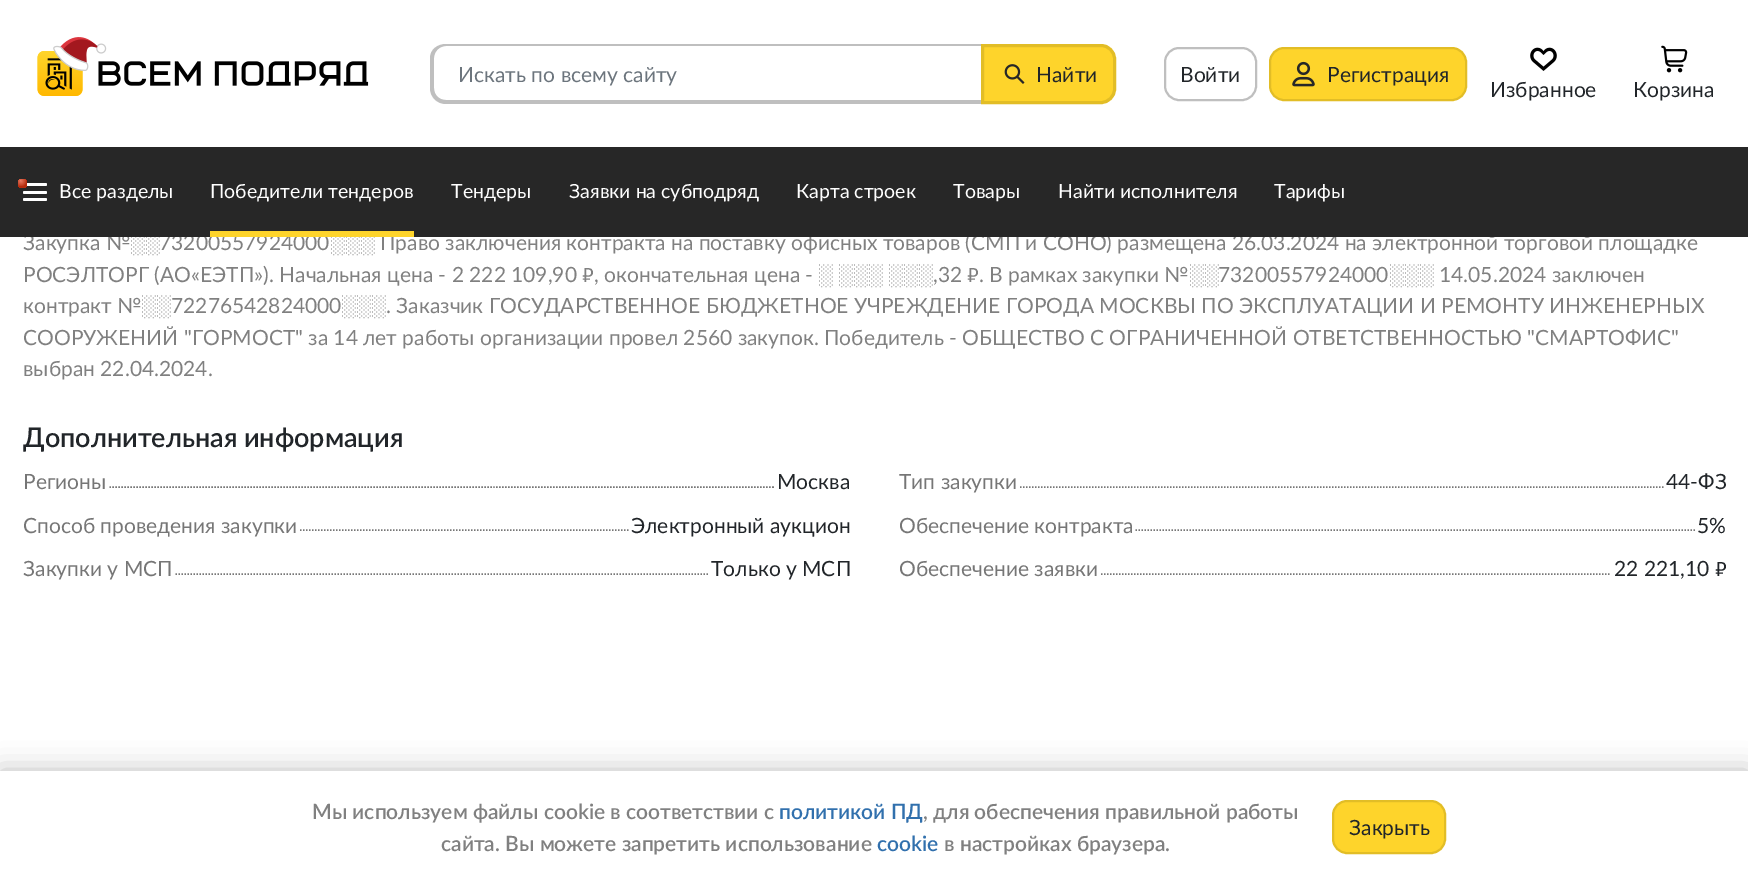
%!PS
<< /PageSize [1748 882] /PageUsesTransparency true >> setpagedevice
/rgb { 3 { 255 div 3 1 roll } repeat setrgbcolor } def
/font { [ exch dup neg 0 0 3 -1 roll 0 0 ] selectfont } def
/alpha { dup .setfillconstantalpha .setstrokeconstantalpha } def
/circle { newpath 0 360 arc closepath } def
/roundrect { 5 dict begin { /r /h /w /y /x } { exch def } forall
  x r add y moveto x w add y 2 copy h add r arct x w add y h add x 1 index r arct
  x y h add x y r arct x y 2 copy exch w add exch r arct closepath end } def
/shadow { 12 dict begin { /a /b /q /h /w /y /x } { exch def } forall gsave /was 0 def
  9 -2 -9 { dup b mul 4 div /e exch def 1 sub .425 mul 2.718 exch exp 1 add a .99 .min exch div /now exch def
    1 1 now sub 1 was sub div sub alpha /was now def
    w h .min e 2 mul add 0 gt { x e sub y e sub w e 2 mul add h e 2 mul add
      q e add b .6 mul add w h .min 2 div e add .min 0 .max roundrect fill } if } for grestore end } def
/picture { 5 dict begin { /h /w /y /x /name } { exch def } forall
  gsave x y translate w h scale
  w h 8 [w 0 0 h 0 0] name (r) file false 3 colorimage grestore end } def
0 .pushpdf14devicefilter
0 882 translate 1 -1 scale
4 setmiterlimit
255 255 255 rgb
0 0 1748 882 rectfill
(img/1.rgb) 37 37 332 59 picture
191 191 191 rgb
446 44 moveto 981 44 lineto 981 104 lineto 446 104 lineto 437 104 430 97 430 88 curveto 430 58 lineto 430 50 437 44 446 44 curveto closepath 446 46 moveto 981 46 lineto 981 100 lineto 446 100 lineto 439 100 434 95 434 88 curveto 434 58 lineto 434 52 439 46 446 46 curveto closepath eofill
254 212 43 rgb
982.5 45.5 moveto 1101 45.5 lineto 1108.5 45.5 1114.5 51.5 1114.5 59 curveto 1114.5 89 lineto 1114.5 96.5 1108.5 102.5 1101 102.5 curveto 982.5 102.5 lineto closepath gsave fill grestore
226 189 38 rgb
3 setlinewidth
stroke
(img/2.rgb) 1004 64 21 20 picture
191 191 191 rgb
2 setlinewidth
1165 48 91 52 14 roundrect stroke
254 212 43 rgb
1270 48 196 52 14 roundrect gsave fill grestore
226 189 38 rgb
stroke
(img/3.rgb) 1292 61 23 26 picture
(img/4.rgb) 1530 47 27 24 picture
(img/5.rgb) 1661 45 27 28 picture
118 118 118 rgb
1.5 setlinewidth
[1.5 1.5] 0 setdash
109.5 487 moveto 774 487 lineto stroke
1020 487 moveto 1663.5 487 lineto stroke
300 530 moveto 628.5 530 lineto stroke
1135.5 530 moveto 1695 530 lineto stroke
175.5 574 moveto 708 574 lineto stroke
1101 574 moveto 1611 574 lineto stroke
0 0 0 rgb
0 771 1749 111 0 13.5 0.25 shadow
255 255 255 rgb
0 771 1748 111 rectfill
254 212 43 rgb
1333 801 112 52 14 roundrect gsave fill grestore
226 189 38 rgb
2 setlinewidth
[] 0 setdash
stroke
/Lato-Regular 21 font
108 117 125 rgb
458 82 moveto (Искать по всему сайту) show
33 37 41 rgb
[
  [(Найти) 1036 82]
  [(Войти) 1180 82]
  [(Регистрация) 1327 82]
  [(Избранное) 1490 97]
  [(Корзина) 1633 97]
] { aload pop moveto show } forall
128 128 128 rgb
23 250 moveto (Закупка №) show
/LiberationSans-Regular 21 font
130 250 moveto (░░) show
/Lato-Regular 21 font
159 250 moveto (73200557924000) show
/LiberationSans-Regular 21 font
330 250 moveto (░░░) show
/Lato-Regular 21 font
380 250 moveto (Право заключения контракта на поставку офисных товаров \(СМП и СОНО\) размещена 26.03.2024 на электронной торговой площадке) show
39 39 39 rgb
0 147 1748 90 rectfill
/Lato-Regular 19.5 font
255 255 255 rgb
[
  [(Тарифы) 1274 198]
  [(Найти исполнителя) 1058 198]
  [(Товары) 953 198]
  [(Карта строек) 796 198]
  [(Заявки на субподряд) 569 198]
  [(Тендеры) 451 198]
] { aload pop moveto show } forall
254 212 43 rgb
210 231 204 6 rectfill
255 255 255 rgb
210 198 moveto (Победители тендеров) show
23 183 24 3 1.5 roundrect fill
gsave 22.5 183.5 4.5 circle clip newpath 21 181 translate 6 6 scale
<< /ShadingType 3 /ColorSpace /DeviceRGB /Coords [0 0 0 0 0 1] /Extend [true true] /Function << /FunctionType 2 /Domain [0 1] /C0 [0.906 0.478 0.384] /C1 [0.71 0.169 0.051] /N 1 >> >> shfill grestore
23 198 24 3 1.5 roundrect fill
23 191 24 3 1.5 roundrect fill
59 198 moveto (Все разделы) show
/Lato-Regular 21 font
128 128 128 rgb
23 282 moveto (РОСЭЛТОРГ \(АО«ЕЭТП»\). Начальная цена - 2 222 109,90) show
/FiraSans-Regular 21 font
582 282 moveto (₽) show
/Lato-Regular 21 font
594 282 moveto (, окончательная цена -) show
/LiberationSans-Regular 21 font
[
  [(░) 818 282]
  [(░░░) 838 282]
  [(░░░) 888 282]
] { aload pop moveto show } forall
/Lato-Regular 21 font
933 282 moveto (,32) show
/FiraSans-Regular 21 font
967 282 moveto (₽) show
/Lato-Regular 21 font
979 282 moveto (. В рамках закупки №) show
/LiberationSans-Regular 21 font
1189 282 moveto (░░) show
/Lato-Regular 21 font
1218 282 moveto (73200557924000) show
/LiberationSans-Regular 21 font
1389 282 moveto (░░░) show
/Lato-Regular 21 font
1439 282 moveto (14.05.2024 заключен) show
23 313 moveto (контракт №) show
/LiberationSans-Regular 21 font
141 313 moveto (░░) show
/Lato-Regular 21 font
171 313 moveto (72276542824000) show
/LiberationSans-Regular 21 font
341 313 moveto (░░░) show
/Lato-Regular 21 font
[
  [(. Заказчик ГОСУДАРСТВЕННОЕ БЮДЖЕТНОЕ УЧРЕЖДЕНИЕ ГОРОДА МОСКВЫ ПО ЭКСПЛУАТАЦИИ И РЕМОНТУ ИНЖЕНЕРНЫХ) 386 313]
  [(СООРУЖЕНИЙ "ГОРМОСТ" за 14 лет работы организации провел 2560 закупок. Победитель - ОБЩЕСТВО С ОГРАНИЧЕННОЙ ОТВЕТСТВЕННОСТЬЮ "СМАРТОФИС") 23 345]
  [(выбран 22.04.2024.) 23 376]
] { aload pop moveto show } forall
/Lato-SemiBold 27 font
33 37 41 rgb
23 447 moveto (Дополнительная информация) show
/Lato-Regular 21 font
118 118 118 rgb
23 489 moveto (Регионы) show
33 37 41 rgb
777 489 moveto (Москва) show
118 118 118 rgb
899 489 moveto (Тип закупки) show
33 37 41 rgb
1666 489 moveto (44-ФЗ) show
118 118 118 rgb
23 533 moveto (Способ проведения закупки) show
33 37 41 rgb
631 533 moveto (Электронный аукцион) show
118 118 118 rgb
899 533 moveto (Обеспечение контракта) show
33 37 41 rgb
1697 533 moveto (5%) show
118 118 118 rgb
23 576 moveto (Закупки у МСП) show
33 37 41 rgb
711 576 moveto (Только у МСП) show
118 118 118 rgb
899 576 moveto (Обеспечение заявки) show
33 37 41 rgb
1614 576 moveto (22 221,10) show
/FiraSans-Regular 21 font
1715 576 moveto (₽) show
/Lato-SemiBold 21 font
128 128 128 rgb
312 819 moveto (Мы используем файлы cookie в соответствии с) show
49 112 173 rgb
779 819 moveto (политикой ПД) show
128 128 128 rgb
923 819 moveto (, для обеспечения правильной работы) show
441 851 moveto (сайта. Вы можете запретить использование) show
49 112 173 rgb
877 851 moveto (cookie) show
128 128 128 rgb
944 851 moveto (в настройках браузера.) show
/Lato-Regular 21 font
33 37 41 rgb
1349 835 moveto (Закрыть) show
.poppdf14devicefilter showpage
